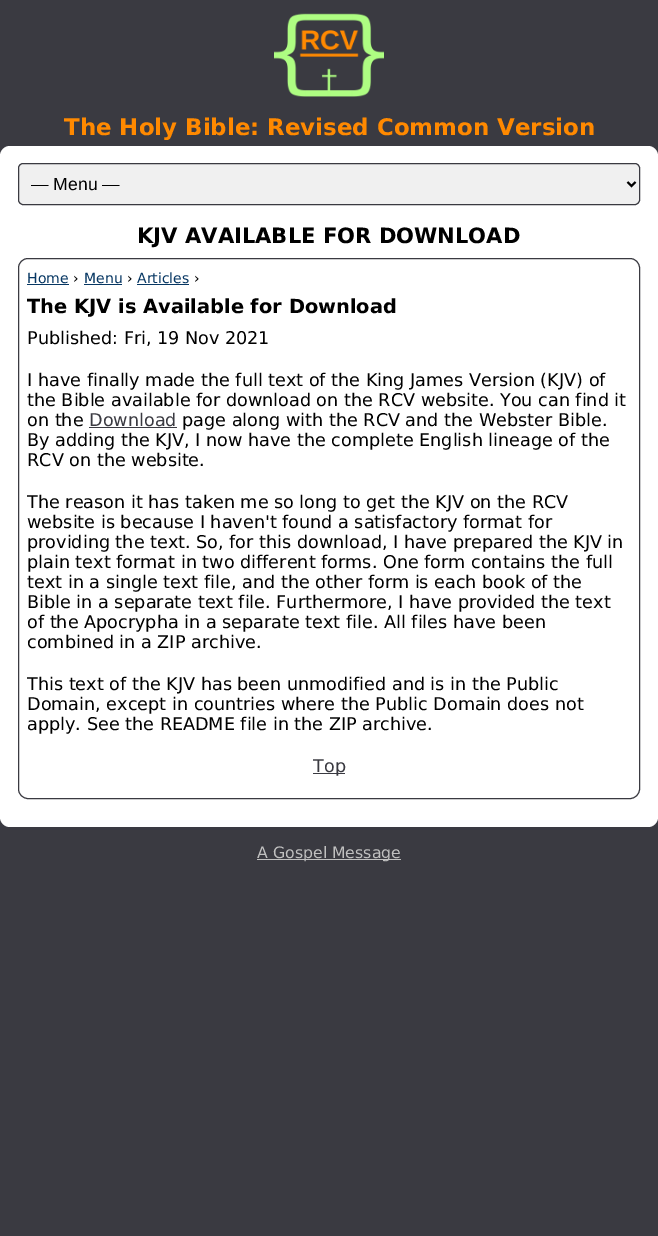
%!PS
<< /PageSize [658 1236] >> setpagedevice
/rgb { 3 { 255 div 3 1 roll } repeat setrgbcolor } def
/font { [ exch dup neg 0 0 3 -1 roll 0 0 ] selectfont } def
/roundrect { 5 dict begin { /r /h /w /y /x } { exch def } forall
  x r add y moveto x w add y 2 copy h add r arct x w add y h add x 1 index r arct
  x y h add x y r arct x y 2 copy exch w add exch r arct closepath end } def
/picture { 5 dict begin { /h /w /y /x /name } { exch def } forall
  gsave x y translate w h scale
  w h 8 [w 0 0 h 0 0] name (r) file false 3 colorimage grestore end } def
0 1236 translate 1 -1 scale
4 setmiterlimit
58 58 65 rgb
0 0 658 1236 rectfill
(img/1.rgb) 274 13 110 84 picture
255 255 255 rgb
0 146 658 681 10 roundrect fill
240 240 240 rgb
18.5 163.5 621 41 4.5 roundrect gsave fill grestore
58 58 65 rgb
stroke
0 0 0 rgb
2 setlinewidth
627.5 182 moveto 631.5 186 lineto 635.5 182 lineto stroke
58 58 65 rgb
1 setlinewidth
18.5 258.5 621 540 9.5 roundrect stroke
[
  [27 284 42 1 7 55 99]
  [84 284 38 1 7 55 99]
  [137 284 52 1 7 55 99]
  [89 427 88 1 58 58 65]
  [313 773 32 1 58 58 65]
  [257 859 144 1 192 192 192]
] { aload pop rgb rectfill } forall
/DejaVuSans-Bold 22.9 font
255 137 0 rgb
64 135 moveto (The Holy Bible: Revised Common Version) show
/LiberationSans-Regular 17.6 font
0 0 0 rgb
31 190 moveto (— Menu —) show
/DejaVuSans-Bold 21.1 font
137 243 moveto (KJV AVAILABLE FOR DOWNLOAD) show
/DejaVuSans-Regular 14 font
7 55 99 rgb
27 283 moveto (Home) show
0 0 0 rgb
73 283 moveto (›) show
7 55 99 rgb
84 283 moveto (Menu) show
0 0 0 rgb
127 283 moveto (›) show
7 55 99 rgb
137 283 moveto (Articles) show
0 0 0 rgb
194 283 moveto (›) show
/DejaVuSans-Bold 19.4 font
27 313 moveto (The KJV is Available for Download) show
/DejaVuSans-Regular 17.6 font
[
  [(Published: Fri, 19 Nov 2021) 27 344]
  [(I have finally made the full text of the King James Version \(KJV\) of) 27 386]
  [(the Bible available for download on the RCV website. You can find it) 27 406]
  [(on the) 27 426]
] { aload pop moveto show } forall
58 58 65 rgb
89 426 moveto (Download) show
0 0 0 rgb
[
  [(page along with the RCV and the Webster Bible.) 182 426]
  [(By adding the KJV, I now have the complete English lineage of the) 27 446]
  [(RCV on the website.) 27 466]
  [(The reason it has taken me so long to get the KJV on the RCV) 27 508]
  [(website is because I haven't found a satisfactory format for) 27 528]
  [(providing the text. So, for this download, I have prepared the KJV in) 27 548]
  [(plain text format in two different forms. One form contains the full) 27 568]
  [(text in a single text file, and the other form is each book of the) 27 588]
  [(Bible in a separate text file. Furthermore, I have provided the text) 27 608]
  [(of the Apocrypha in a separate text file. All files have been) 27 628]
  [(combined in a ZIP archive.) 27 648]
  [(This text of the KJV has been unmodified and is in the Public) 27 690]
  [(Domain, except in countries where the Public Domain does not) 27 710]
  [(apply. See the README file in the ZIP archive.) 27 730]
] { aload pop moveto show } forall
58 58 65 rgb
313 772 moveto (Top) show
/DejaVuSans-Regular 15.75 font
192 192 192 rgb
257 858 moveto (A Gospel Message) show
showpage
